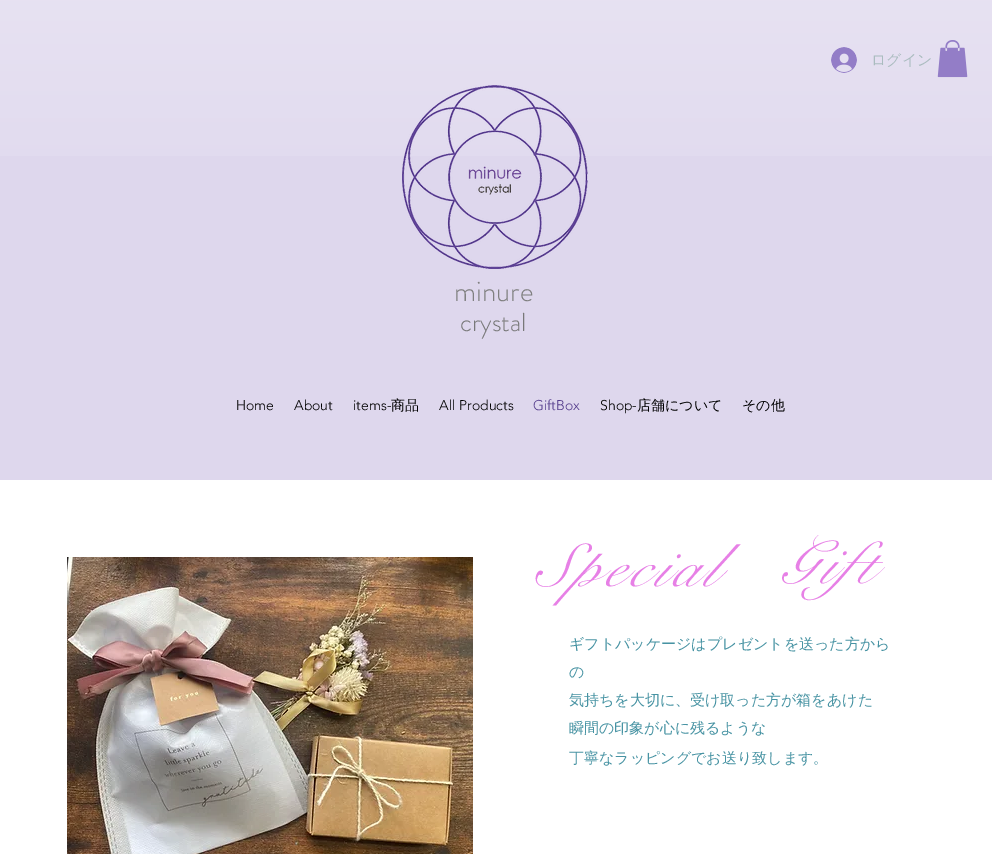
%!PS
<< /PageSize [992 854] >> setpagedevice
/rgb { 3 { 255 div 3 1 roll } repeat setrgbcolor } def
/font { [ exch dup neg 0 0 3 -1 roll 0 0 ] selectfont } def
/picture { 5 dict begin { /h /w /y /x /name } { exch def } forall
  gsave x y translate w h scale
  w h 8 [w 0 0 h 0 0] name (r) file false 3 colorimage grestore end } def
0 854 translate 1 -1 scale
4 setmiterlimit
255 255 255 rgb
0 0 992 854 rectfill
222 215 237 rgb
0 0 992 480 rectfill
(img/1.rgb) 0 0 992 156 picture
(img/2.rgb) 831 47 26 26 picture
(img/3.rgb) 937 40 31 38 picture
(img/4.rgb) 402 85 186 184 picture
(img/5.rgb) 67 557 406 297 picture
/WenQuanYiZenHei-Medium 15 font
170 188 191 rgb
871 65 moveto (ログイン) show
/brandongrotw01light-Light 29 font
128 128 128 rgb
454 301 moveto (minure) show
/brandongrotw01light-Light 26 font
120 120 120 rgb
460 331 moveto (crystal) show
/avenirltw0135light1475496-Light 14 font
0 0 0 rgb
[
  [(Home) 236 410]
  [(About) 294 410]
  [(items-) 353 410]
] { aload pop moveto show } forall
/WenQuanYiZenHei-Medium 14 font
391 410 moveto (商品) show
/avenirltw0135light1475496-Light 14 font
439 410 moveto (All Products) show
84 60 140 rgb
533 410 moveto (GiftBox) show
0 0 0 rgb
600 410 moveto (Shop-) show
/WenQuanYiZenHei-Medium 14 font
637 410 moveto (店舗について) show
742 410 moveto (その他) show
/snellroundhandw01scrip-Italic 60 font
231 128 230 rgb
535 586 moveto 4.75 0 (Special) ashow
779 583 moveto 4.75 0 (Gift) ashow
/WenQuanYiZenHei-Medium 15 font
71 147 163 rgb
[
  [(ギフトパッケージはプレゼントを送った方から) 569 649]
  [(の) 569 677]
  [(気持ちを大切に、受け取った方が箱をあけた) 569 705]
  [(瞬間の印象が心に残るような) 569 733]
  [(丁寧なラッピングでお送り致します。) 569 763]
] { aload pop moveto show } forall
showpage
